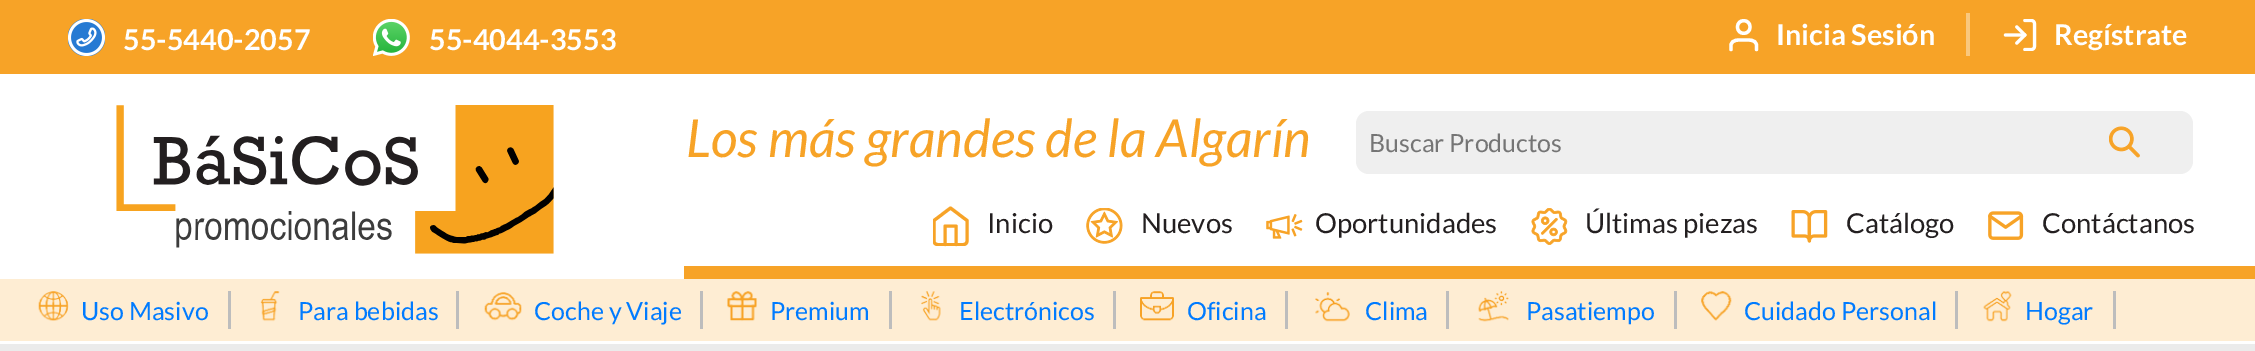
%!PS
<< /PageSize [2255 351] >> setpagedevice
/rgb { 3 { 255 div 3 1 roll } repeat setrgbcolor } def
/font { [ exch dup neg 0 0 3 -1 roll 0 0 ] selectfont } def
/roundrect { 5 dict begin { /r /h /w /y /x } { exch def } forall
  x r add y moveto x w add y 2 copy h add r arct x w add y h add x 1 index r arct
  x y h add x y r arct x y 2 copy exch w add exch r arct closepath end } def
/picture { 5 dict begin { /h /w /y /x /name } { exch def } forall
  gsave x y translate w h scale
  w h 8 [w 0 0 h 0 0] name (r) file false 3 colorimage grestore end } def
0 351 translate 1 -1 scale
4 setmiterlimit
255 255 255 rgb
0 0 2255 351 rectfill
247 163 39 rgb
0 0 2255 74 rectfill
(img/1.rgb) 68 19 37 37 picture
(img/2.rgb) 373 19 37 37 picture
250 200 125 rgb
1966 13 4 43 rectfill
255 255 255 rgb
3.3 setlinewidth
1 setlinecap
1 setlinejoin
1756.5 49.5 moveto 1756.5 45 lineto 1755.5 39 1748.5 40 1743.5 40 curveto 1739 40 1732 39 1731 45 curveto 1731 49.5 lineto 1750 27 moveto 1750 35.5 1737.5 35.5 1737.5 27 curveto 1737.5 18.5 1750 18.5 1750 27 curveto closepath stroke
(img/3.rgb) 2003 19 34 32 picture
(img/4.rgb) 116 105 438 149 picture
247 163 39 rgb
684 266 1571 13 rectfill
239 239 239 rgb
1356 111 837 63 13 roundrect fill
(img/5.rgb) 2109 126 31 32 picture
gsave
933 206 36 40 rectclip
247 163 39 rgb
3.1 setlinewidth
934 220.5 moveto 950.5 208 lineto 967 220.5 lineto 967 241 lineto 967 243 965.5 244.5 963.5 244.5 curveto 937.5 244.5 lineto 935.5 244.5 934 243 934 241 curveto closepath stroke
grestore
247 163 39 rgb
3.1 setlinewidth
945 244.5 moveto 945 226 lineto 956 226 lineto 956 244.5 lineto stroke
(img/6.rgb) 1086 208 37 36 picture
(img/7.rgb) 1266 214 37 25 picture
(img/8.rgb) 1531 208 37 37 picture
(img/9.rgb) 1791 210 37 33 picture
(img/10.rgb) 1988 211 36 29 picture
254 237 211 rgb
0 279 2255 62 rectfill
189 189 189 rgb
228 291 3 38 rectfill
(img/11.rgb) 38 291 31 30 picture
456 291 3 38 rectfill
(img/12.rgb) 260 291 20 31 picture
700 291 3 38 rectfill
(img/13.rgb) 484 292 38 29 picture
889 291 3 38 rectfill
(img/14.rgb) 727 291 30 31 picture
1113 291 3 38 rectfill
(img/15.rgb) 921 291 20 30 picture
1285 291 3 38 rectfill
(img/16.rgb) 1140 291 34 30 picture
1446 291 3 38 rectfill
(img/17.rgb) 1315 292 35 30 picture
1674 291 3 38 rectfill
(img/18.rgb) 1478 291 31 31 picture
1955 291 3 38 rectfill
(img/19.rgb) 1701 291 31 30 picture
2113 291 3 38 rectfill
(img/20.rgb) 1983 291 29 31 picture
235 235 235 rgb
0 344 2255 7 rectfill
/Lato-Bold 28.75 font
255 255 255 rgb
[
  [(55-5440-2057) 123 50]
  [(55-4044-3553) 429 50]
  [(Inicia Sesión) 1776 45]
  [(Regístrate) 2054 45]
] { aload pop moveto show } forall
/Lato-Italic 52.5 font
247 163 39 rgb
686 157 moveto (Los más grandes de la Algarín) show
/Lato-Regular 25 font
117 117 117 rgb
1369 152 moveto (Buscar Productos) show
/Lato-Regular 27.5 font
35 31 32 rgb
[
  [(Inicio) 987 233]
  [(Nuevos) 1141 233]
  [(Oportunidades) 1315 233]
  [(Últimas piezas) 1585 233]
  [(Catálogo) 1846 233]
  [(Contáctanos) 2042 233]
] { aload pop moveto show } forall
/Lato-Regular 25 font
0 123 255 rgb
[
  [(Uso Masivo) 81 320]
  [(Para bebidas) 298 320]
  [(Coche y Viaje) 534 320]
  [(Premium) 770 320]
  [(Electrónicos) 959 320]
  [(Oficina) 1187 320]
  [(Clima) 1365 320]
  [(Pasatiempo) 1526 320]
  [(Cuidado Personal) 1744 320]
  [(Hogar) 2025 320]
] { aload pop moveto show } forall
showpage
